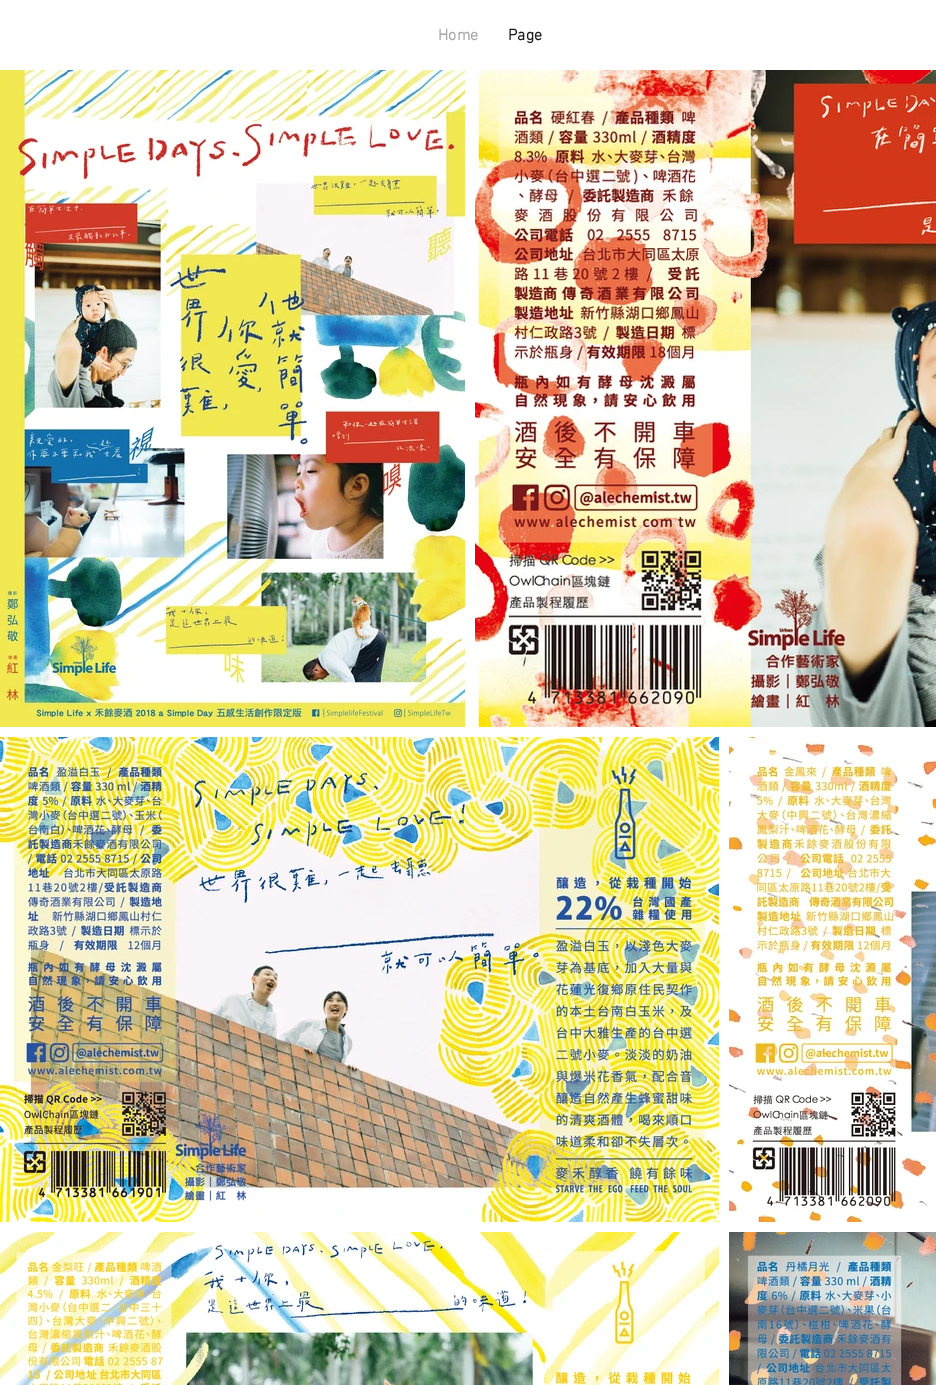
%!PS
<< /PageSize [936 1385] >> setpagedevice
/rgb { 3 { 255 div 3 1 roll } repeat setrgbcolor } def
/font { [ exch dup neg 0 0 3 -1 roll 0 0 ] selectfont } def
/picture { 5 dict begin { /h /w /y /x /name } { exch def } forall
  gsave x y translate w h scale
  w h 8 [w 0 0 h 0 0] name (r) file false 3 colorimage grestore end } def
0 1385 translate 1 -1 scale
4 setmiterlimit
255 255 255 rgb
0 0 936 1385 rectfill
(img/1.rgb) 0 70 465 657 picture
(img/2.rgb) 475 70 461 657 picture
(img/3.rgb) 0 737 719 485 picture
(img/4.rgb) 729 737 207 485 picture
(img/5.rgb) 0 1232 719 153 picture
(img/6.rgb) 729 1232 207 153 picture
/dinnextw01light-Bold 16 font
167 167 167 rgb
438 40 moveto (Home) show
27 27 27 rgb
508 40 moveto (Page) show
showpage
